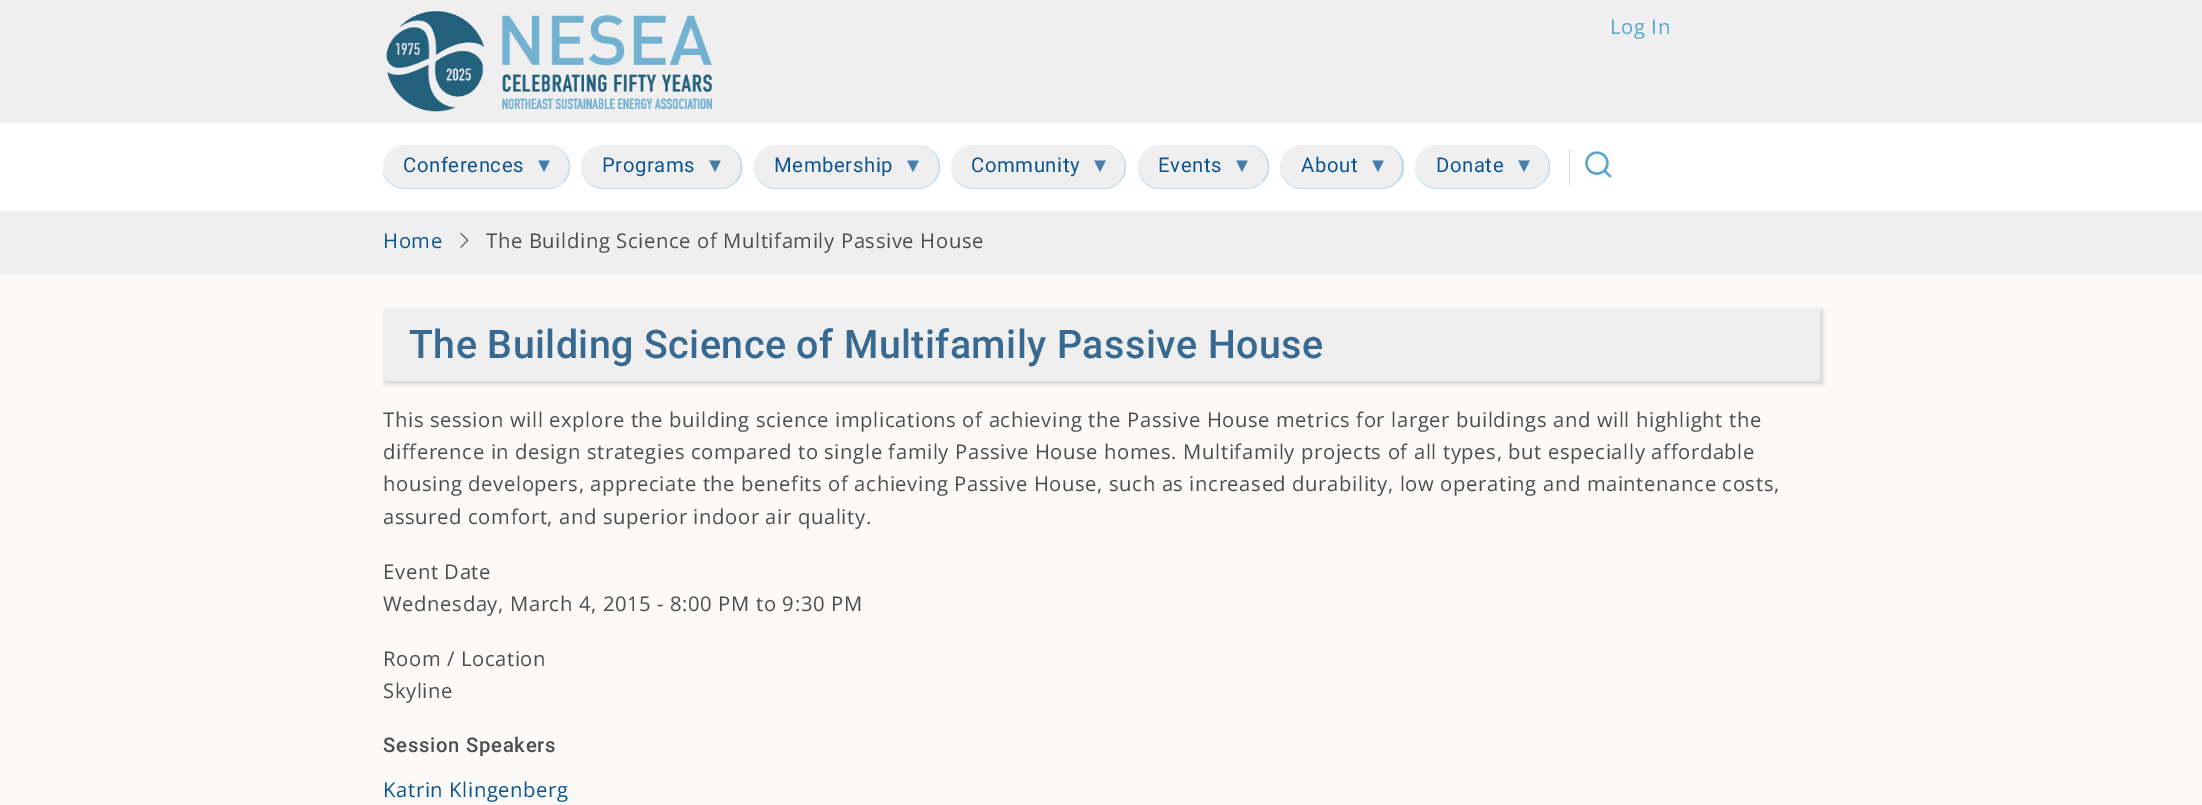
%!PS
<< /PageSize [2202 805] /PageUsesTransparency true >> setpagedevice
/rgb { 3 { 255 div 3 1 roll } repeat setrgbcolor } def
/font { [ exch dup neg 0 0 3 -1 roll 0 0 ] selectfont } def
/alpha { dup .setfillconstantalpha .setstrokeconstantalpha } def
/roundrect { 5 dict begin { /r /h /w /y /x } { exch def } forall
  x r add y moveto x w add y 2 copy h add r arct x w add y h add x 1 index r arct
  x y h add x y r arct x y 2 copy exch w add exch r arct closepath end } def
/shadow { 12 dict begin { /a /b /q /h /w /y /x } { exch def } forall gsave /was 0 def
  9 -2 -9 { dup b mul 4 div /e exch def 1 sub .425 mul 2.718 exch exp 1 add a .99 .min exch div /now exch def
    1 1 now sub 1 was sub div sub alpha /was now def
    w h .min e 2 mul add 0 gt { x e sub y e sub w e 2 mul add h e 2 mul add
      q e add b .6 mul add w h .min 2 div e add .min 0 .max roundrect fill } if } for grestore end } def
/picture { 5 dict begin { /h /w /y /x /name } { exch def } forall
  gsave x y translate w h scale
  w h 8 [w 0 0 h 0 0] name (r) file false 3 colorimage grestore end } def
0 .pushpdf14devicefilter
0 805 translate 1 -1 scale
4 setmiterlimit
251 250 249 rgb
0 0 2202 805 rectfill
239 239 239 rgb
0 0 2202 123 rectfill
(img/1.rgb) 386 11 326 101 picture
255 255 255 rgb
0 123 2202 88 rectfill
239 239 239 rgb
383 145 187 44 22 roundrect fill
190 218 234 rgb
570 167 moveto 570 155.5 561 146 549.5 145 curveto 567.5 146 575 169 563 181.5 curveto 563.5 182.5 lineto 567.5 178.5 570 173 570 167 curveto closepath fill
203 225 238 rgb
382 171 moveto 385 180 394 188 404 188 curveto 548 188 lineto 554 188 559 186 563 182 curveto 564 182 lineto 560 186 556 188 551 189 curveto 401 189 lineto 392 187 384 180 382 172 curveto closepath fill
239 239 239 rgb
581 145 162 44 22 roundrect fill
190 218 234 rgb
742 167 moveto 742 155 733 145 721 145 curveto 739.5 145 747 169 735 181.5 curveto 736 182.5 lineto 740 178.5 742 173 742 167 curveto closepath fill
203 225 238 rgb
581 170 moveto 583 180 592 188 603 188 curveto 721 188 lineto 727 188 732 185 735 181 curveto 736 182 lineto 733 186 729 188 724 189 curveto 600 189 lineto 590 187 583 180 581 170 curveto closepath fill
239 239 239 rgb
754 145 186 44 22 roundrect fill
190 218 234 rgb
940 167 moveto 940 155.5 931 146 919.5 145 curveto 937.5 146 945 169 933 181.5 curveto 933.5 182.5 lineto 937.5 178.5 940 173 940 167 curveto closepath fill
203 225 238 rgb
921 189 moveto 773 189 lineto 762 187 754 178 754 167 curveto 754 178 764 188 776 188 curveto 918 188 lineto 924 188 929 186 933 182 curveto 934 182 lineto 930 186 926 188 921 189 curveto closepath fill
239 239 239 rgb
951 145 175 44 22 roundrect fill
190 218 234 rgb
1126 167 moveto 1126 155.5 1117 146 1106 145 curveto 1123.5 146.5 1131 169 1119 181.5 curveto 1119.5 182 lineto 1123.5 178.5 1126 173 1126 167 curveto closepath fill
203 225 238 rgb
951 170 moveto 953 180 962 188 973 188 curveto 1104 188 lineto 1110 188 1115 185 1119 182 curveto 1120 182 lineto 1116 186 1112 188 1107 189 curveto 970 189 lineto 960 187 953 180 951 170 curveto closepath fill
239 239 239 rgb
1138 145 131 44 22 roundrect fill
190 218 234 rgb
1269 163.5 moveto 1267 153 1258 145 1247 145 curveto 1258 145 1268 155 1268 167 curveto 1268 172.5 1265.5 178 1261.5 181.5 curveto 1262.5 182.5 lineto 1266 179 1268 175 1269 170.5 curveto closepath fill
203 225 238 rgb
1250 189 moveto 1156 189 lineto 1145 187 1138 178 1138 167 curveto 1138 178 1147 188 1159 188 curveto 1247 188 lineto 1252 188 1258 186 1262 182 curveto 1259 186 1255 188 1250 189 curveto closepath fill
239 239 239 rgb
1280 145 124 44 22 roundrect fill
190 218 234 rgb
1404 163.5 moveto 1402 153 1393 145 1382 145 curveto 1400.5 145 1408 168.5 1396.5 181.5 curveto 1397.5 182.5 lineto 1401 179 1403 175 1404 170.5 curveto closepath fill
203 225 238 rgb
1299 189 moveto 1288 187 1280 178 1280 167 curveto 1280 178 1290 188 1302 188 curveto 1382 188 lineto 1388 188 1393 185 1396 181 curveto 1398 182 lineto 1394 186 1390 188 1385 189 curveto closepath fill
239 239 239 rgb
1415 145 135 44 22 roundrect fill
190 218 234 rgb
1550 167 moveto 1550 155.5 1541 146 1530 145 curveto 1548 146.5 1555 169.5 1543 181.5 curveto 1543.5 182.5 lineto 1547.5 178.5 1550 173 1550 167 curveto closepath fill
203 225 238 rgb
1434 189 moveto 1423 187 1415 178 1415 167 curveto 1415 178 1425 188 1437 188 curveto 1528 188 lineto 1534 188 1539 186 1543 182 curveto 1544 182 lineto 1540 186 1536 188 1531 189 curveto closepath fill
219 219 211 rgb
1569 149 1 36 rectfill
(img/2.rgb) 1585 151 27 27 picture
239 239 239 rgb
0 211 2202 63 rectfill
(img/3.rgb) 460 232 9 16 picture
0 0 0 rgb
385 310 1438 74 0 2 0.15 shadow
239 239 239 rgb
383 308 1437 73 rectfill
/OpenSans-Regular 20.25 font
91 165 205 rgb
1610 34 moveto 0.61 0 (Log In) ashow
/Roboto-Regular 20.25 font
12 85 147 rgb
403 172 moveto 0.61 0 (Conferences) ashow
/LiberationSans-Regular 20.25 font
71 125 171 rgb
534 172 moveto 0.61 0 (▼) ashow
/Roboto-Regular 20.25 font
12 85 147 rgb
602 172 moveto 0.61 0 (Programs) ashow
/LiberationSans-Regular 20.25 font
71 125 171 rgb
705 172 moveto 0.61 0 (▼) ashow
/Roboto-Regular 20.25 font
12 85 147 rgb
774 172 moveto 0.61 0 (Membership) ashow
/LiberationSans-Regular 20.25 font
71 125 171 rgb
903 172 moveto 0.61 0 (▼) ashow
/Roboto-Regular 20.25 font
12 85 147 rgb
971 172 moveto 0.61 0 (Community) ashow
/LiberationSans-Regular 20.25 font
71 125 171 rgb
1090 172 moveto 0.61 0 (▼) ashow
/Roboto-Regular 20.25 font
12 85 147 rgb
1158 172 moveto 0.61 0 (Events) ashow
/LiberationSans-Regular 20.25 font
71 125 171 rgb
1232 172 moveto 0.61 0 (▼) ashow
/Roboto-Regular 20.25 font
12 85 147 rgb
1301 172 moveto 0.61 0 (About) ashow
/LiberationSans-Regular 20.25 font
71 125 171 rgb
1368 172 moveto 0.61 0 (▼) ashow
/Roboto-Regular 20.25 font
12 85 147 rgb
1436 172 moveto 0.61 0 (Donate) ashow
/LiberationSans-Regular 20.25 font
71 125 171 rgb
1514 172 moveto 0.61 0 (▼) ashow
/OpenSans-Regular 20.25 font
12 85 147 rgb
383 248 moveto 0.61 0 (Home) ashow
77 77 77 rgb
486 248 moveto 0.61 0 (The Building Science of Multifamily Passive House) ashow
/Roboto-Medium 39.4 font
56 105 145 rgb
409 358 moveto 0.4 0 (The Building Science of Multifamily Passive House) ashow
/OpenSans-Regular 20.25 font
77 77 77 rgb
383 427 moveto 0.61 0 (This session will explore the building science implications of achieving the Passive House metrics for larger buildings and will highlight the) ashow
383 459 moveto 0.61 0 (difference in design strategies compared to single family Passive House homes. Multifamily projects of all types, but especially affordable) ashow
383 491 moveto 0.61 0 (housing developers, appreciate the benefits of achieving Passive House, such as increased durability, low operating and maintenance costs,) ashow
383 524 moveto 0.61 0 (assured comfort, and superior indoor air quality.) ashow
383 579 moveto 0.61 0 (Event Date) ashow
383 611 moveto 0.61 0 (Wednesday, March 4, 2015 - 8:00 PM to 9:30 PM) ashow
383 666 moveto 0.61 0 (Room / Location) ashow
383 698 moveto 0.61 0 (Skyline) ashow
/Roboto-Medium 20.25 font
383 752 moveto 0.75 0 (Session Speakers) ashow
/OpenSans-Regular 20.25 font
12 85 147 rgb
383 797 moveto 0.61 0 (Katrin Klingenberg) ashow
.poppdf14devicefilter showpage
